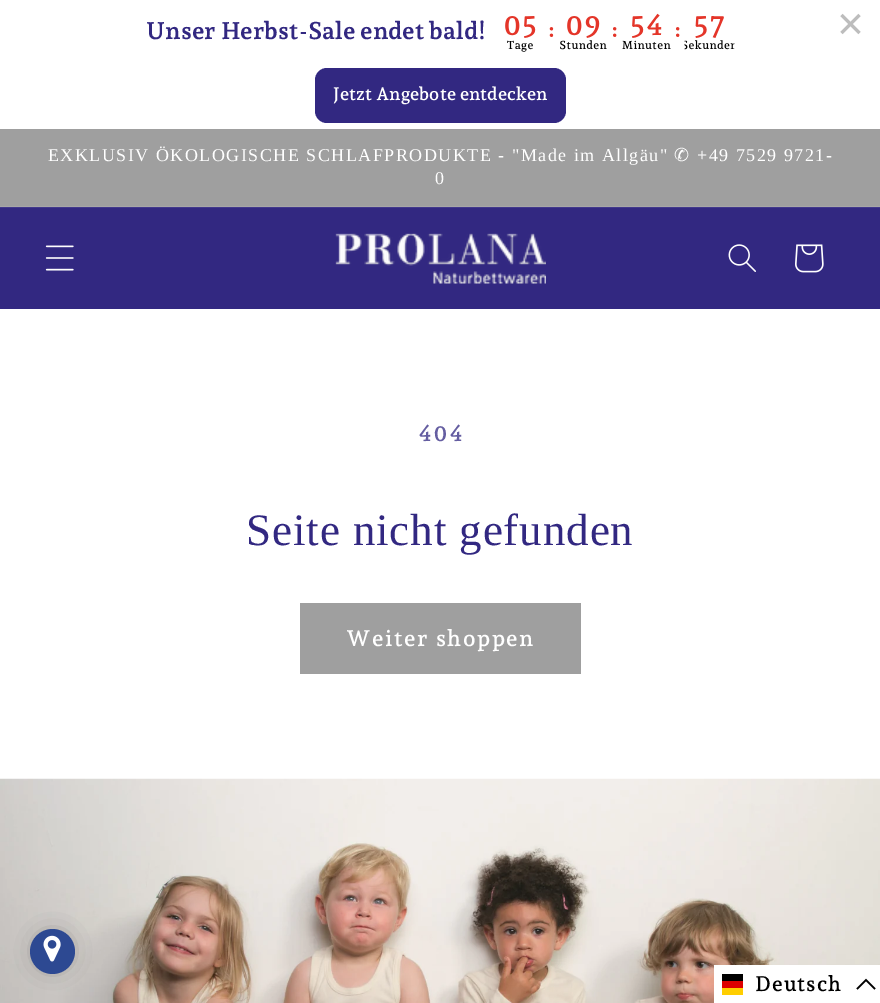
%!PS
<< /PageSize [880 1003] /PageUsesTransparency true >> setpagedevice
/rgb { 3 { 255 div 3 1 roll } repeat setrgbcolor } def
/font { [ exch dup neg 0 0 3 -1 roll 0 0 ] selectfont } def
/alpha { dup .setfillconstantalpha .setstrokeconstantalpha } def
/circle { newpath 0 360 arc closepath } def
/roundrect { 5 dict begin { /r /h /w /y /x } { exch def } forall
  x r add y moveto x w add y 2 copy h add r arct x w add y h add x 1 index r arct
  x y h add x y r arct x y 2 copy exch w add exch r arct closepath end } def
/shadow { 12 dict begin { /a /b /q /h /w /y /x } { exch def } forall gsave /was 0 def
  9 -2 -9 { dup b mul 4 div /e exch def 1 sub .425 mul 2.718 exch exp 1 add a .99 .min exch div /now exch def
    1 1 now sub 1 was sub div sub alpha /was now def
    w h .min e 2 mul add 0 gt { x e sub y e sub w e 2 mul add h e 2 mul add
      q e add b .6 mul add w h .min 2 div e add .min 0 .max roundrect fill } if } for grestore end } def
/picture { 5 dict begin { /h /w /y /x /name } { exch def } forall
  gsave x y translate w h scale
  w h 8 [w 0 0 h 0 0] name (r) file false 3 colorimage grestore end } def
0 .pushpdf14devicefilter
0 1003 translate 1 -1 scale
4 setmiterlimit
255 255 255 rgb
0 0 880 1003 rectfill
(img/1.rgb) 505 13 230 39 picture
50 40 129 rgb
315 68 251 55 12 roundrect fill
189 189 189 rgb
3 setlinewidth
859.5 15 moveto 841.5 33 lineto 859.5 33 moveto 841.5 15 lineto stroke
[
  [0 129 880 77 159 159 159]
  [0 206 880 1 167 167 167]
  [0 208 880 101 50 40 129]
  [0 207 880 1 66 57 139]
] { aload pop rgb rectfill } forall
(img/2.rgb) 45 245 29 26 picture
(img/3.rgb) 335 233 211 51 picture
(img/4.rgb) 728 244 28 28 picture
(img/5.rgb) 795 244 29 29 picture
159 159 159 rgb
300 603 281 71 rectfill
(img/6.rgb) 0 778 880 225 picture
90 90 90 rgb
44 942 18 18 9 13.5 1 shadow
45 73 146 rgb
52.5 951.5 22.5 circle fill
(img/7.rgb) 43 935 18 27 picture
[
  [714 965 166 38 255 255 255]
  [722 988 21 7 255 206 0]
  [722 974 21 7 0 0 0]
  [722 981 21 7 221 0 0]
] { aload pop rgb rectfill } forall
0 0 0 rgb
1.5 setlinewidth
875 989 moveto 866 980 lineto 857 989 lineto stroke
/AndadaPro-Bold 24 font
50 40 129 rgb
146 39 moveto (Unser Herbst-Sale endet bald!) show
/AndadaPro-SemiBold 18 font
255 255 255 rgb
333 100 moveto (Jetzt Angebote entdecken) show
/LiberationSerif-Regular 18 font
48 161 moveto 1.5 0 (EXKLUSIV ÖKOLOGISCHE SCHLAFPRODUKTE - "Made im Allgäu") ashow
/DejaVuSans-Regular 18 font
674 161 moveto 1.5 0 (✆) ashow
/LiberationSerif-Regular 18 font
697 161 moveto 1.5 0 (+49 7529 9721-) ashow
435 184 moveto 1.5 0 (0) ashow
/AndadaPro-SemiBold 22.5 font
101 94 161 rgb
418 441 moveto 0.9 0 (404) ashow
/LiberationSerif-Regular 45 font
50 40 129 rgb
246 545 moveto 0.9 0 (Seite nicht gefunden) ashow
/AndadaPro-SemiBold 22.5 font
255 255 255 rgb
346 646 moveto 1.5 0 (Weiter shoppen) ashow
/AndadaPro-SemiBold 21 font
0 0 0 rgb
755 991 moveto 0.9 0 (Deutsch) ashow
.poppdf14devicefilter showpage
